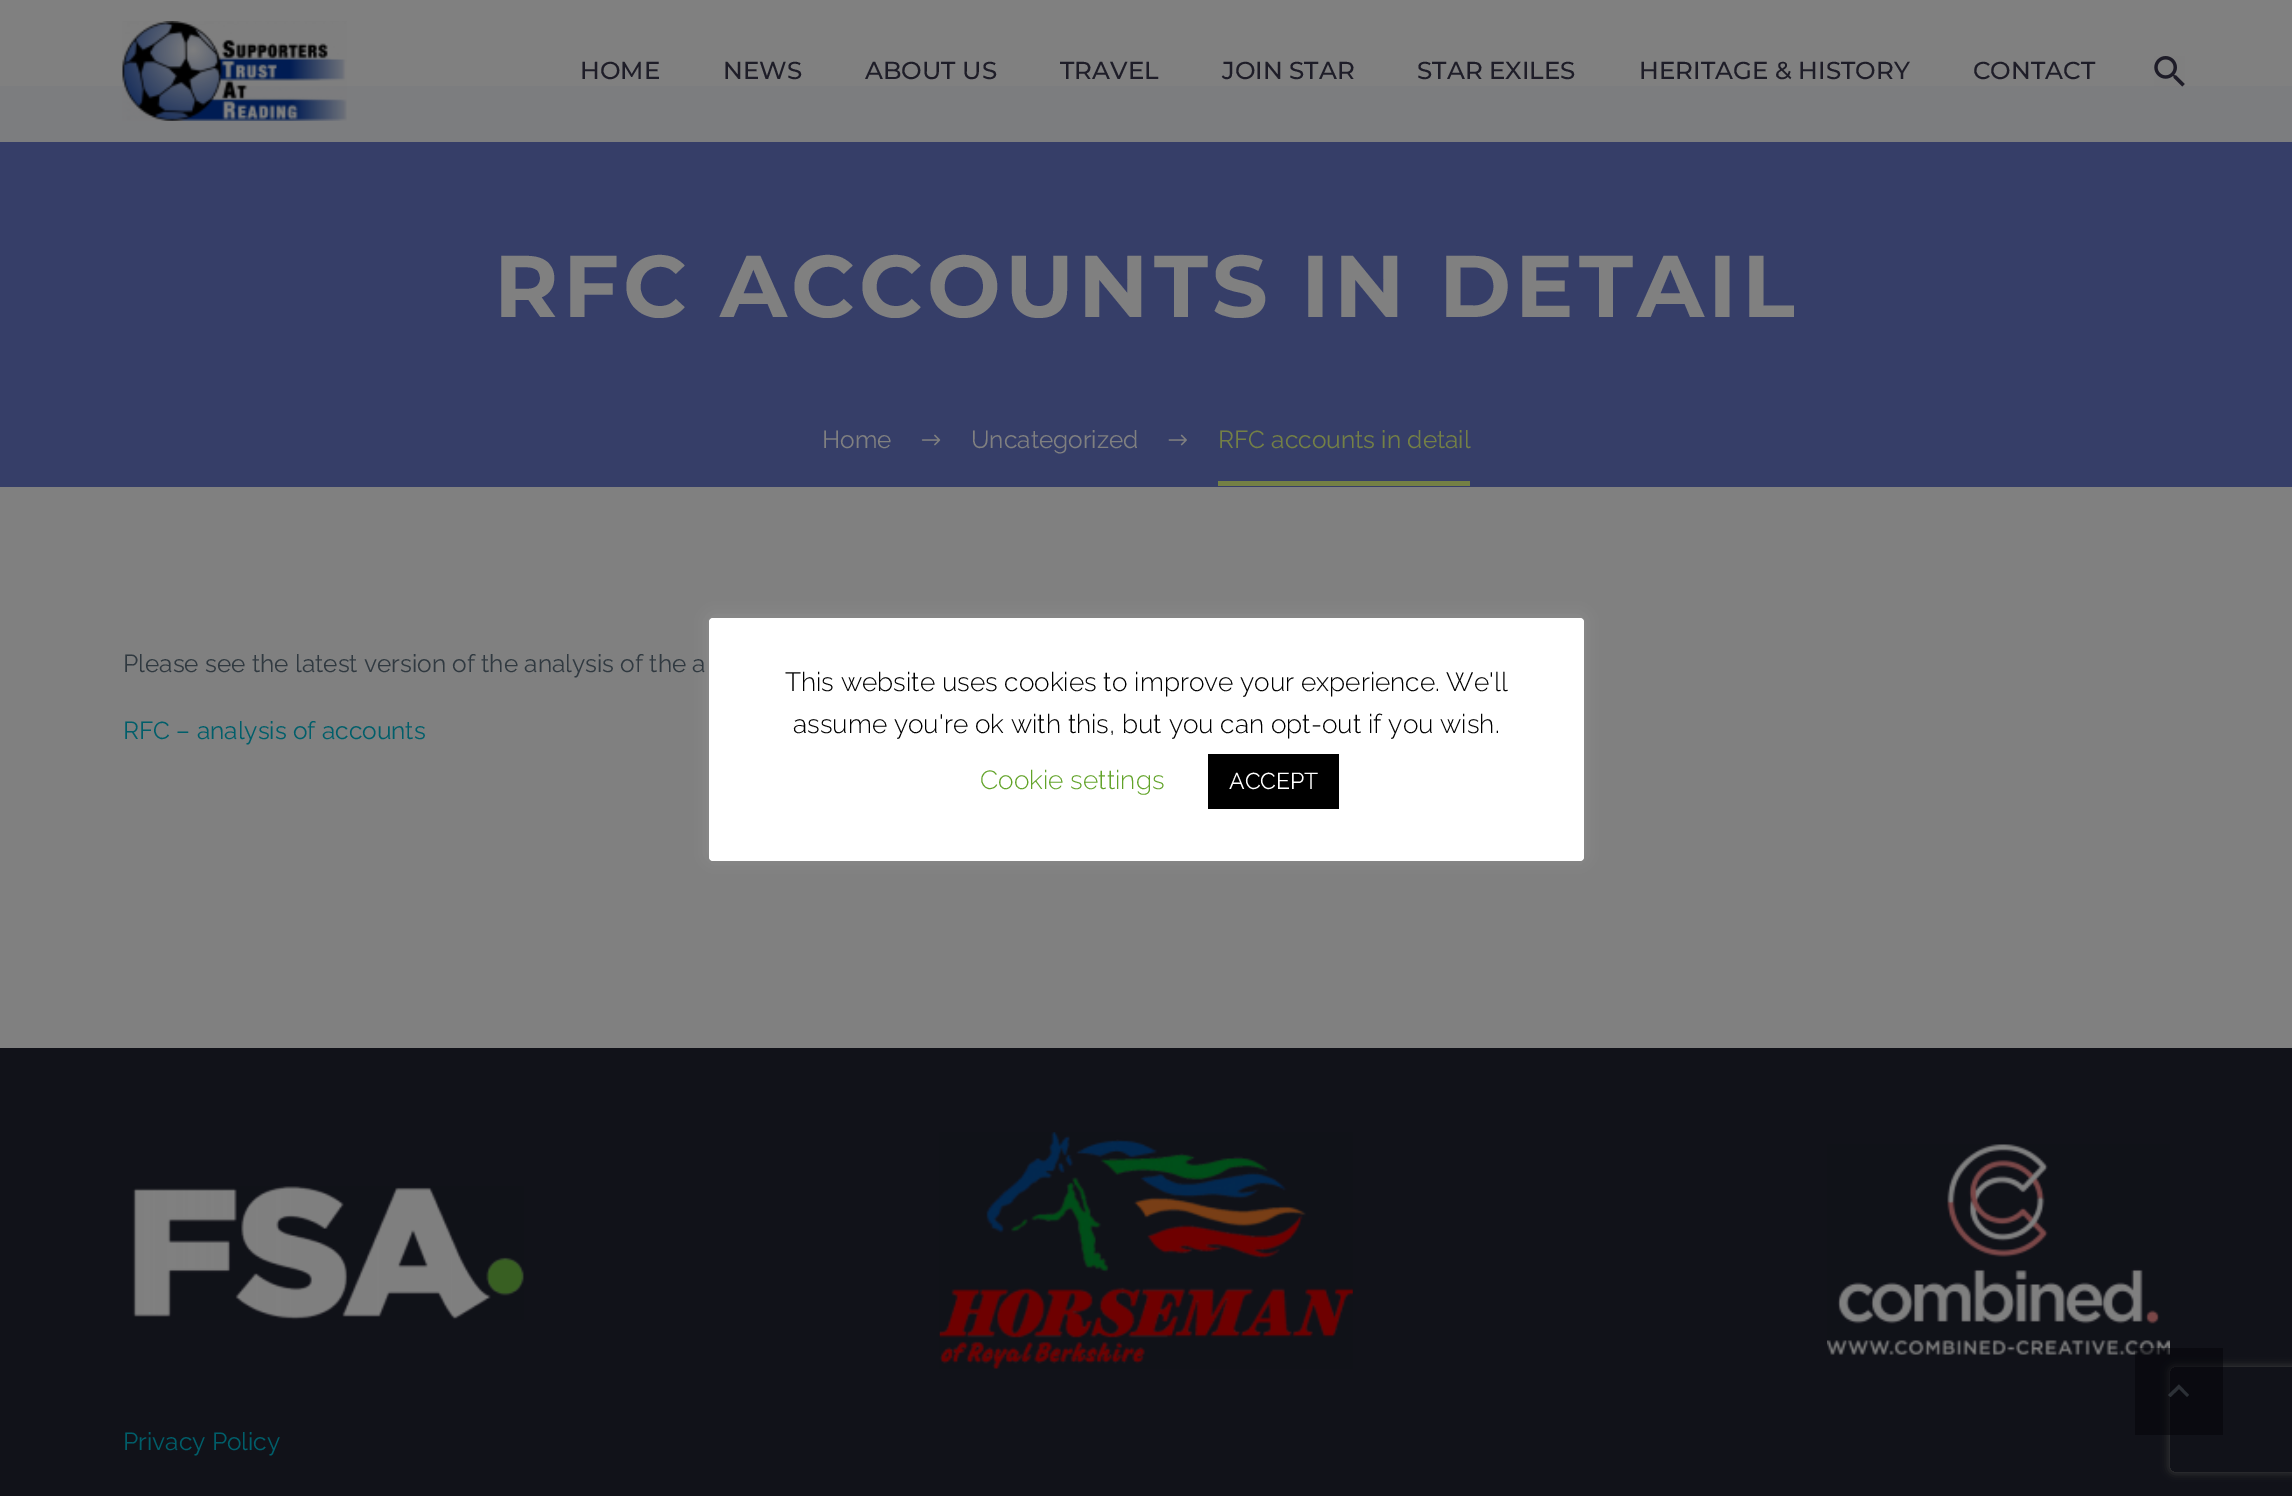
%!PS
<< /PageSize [2292 1496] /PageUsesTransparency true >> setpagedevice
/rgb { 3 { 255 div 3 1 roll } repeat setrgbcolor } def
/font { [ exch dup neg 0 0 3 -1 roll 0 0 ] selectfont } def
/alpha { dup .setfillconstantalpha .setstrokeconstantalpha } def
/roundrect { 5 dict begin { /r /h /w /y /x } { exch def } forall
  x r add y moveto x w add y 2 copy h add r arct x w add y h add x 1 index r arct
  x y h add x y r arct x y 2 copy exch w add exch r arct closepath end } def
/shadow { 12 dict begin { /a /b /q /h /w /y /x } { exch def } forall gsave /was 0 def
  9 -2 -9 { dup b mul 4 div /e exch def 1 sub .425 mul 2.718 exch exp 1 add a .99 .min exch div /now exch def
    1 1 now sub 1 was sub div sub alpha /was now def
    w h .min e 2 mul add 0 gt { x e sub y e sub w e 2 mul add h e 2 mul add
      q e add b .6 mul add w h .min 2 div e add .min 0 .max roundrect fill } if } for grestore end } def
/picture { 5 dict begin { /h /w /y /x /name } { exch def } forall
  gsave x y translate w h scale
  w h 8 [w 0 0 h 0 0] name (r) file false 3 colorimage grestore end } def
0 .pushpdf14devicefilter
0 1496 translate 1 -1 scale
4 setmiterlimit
128 128 128 rgb
0 0 2292 1496 rectfill
54 62 104 rgb
0 86 2292 401 rectfill
0.95 alpha
128 128 128 rgb
0 86 2292 56 rectfill
1 alpha
(img/1.rgb) 122 21 225 100 picture
(img/2.rgb) 2154 56 31 31 picture
(img/3.rgb) 921 434 20 12 picture
(img/4.rgb) 1168 434 19 12 picture
116 128 69 rgb
1218 481 252 5 rectfill
17 18 25 rgb
0 1048 2292 448 rectfill
gsave
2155 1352 moveto 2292 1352 lineto 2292 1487 lineto 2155 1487 lineto closepath 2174 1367 moveto 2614 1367 lineto 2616 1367 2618 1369 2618 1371 curveto 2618 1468 lineto 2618 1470 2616 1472 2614 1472 curveto 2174 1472 lineto 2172 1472 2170 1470 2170 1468 curveto 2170 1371 lineto 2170 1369 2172 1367 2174 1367 curveto closepath eoclip newpath
64 64 64 rgb
2170 1367 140 105 4 4.5 1 shadow
grestore
(img/7.rgb) 1827 1144 343 211 picture
0.5 alpha
3 3 8 rgb
2135 1348 88 87 rectfill
77 85 91 rgb
2170.5 1397 moveto 2179 1389 lineto 2187 1397 lineto 2189 1395 lineto 2179 1384.5 lineto 2168 1395 lineto closepath fill
1 alpha
(img/5.rgb) 132 1186 392 134 picture
(img/6.rgb) 939 1132 414 237 picture
172 171 171 rgb
709 616 875 243 4 9 0.3 shadow
255 255 255 rgb
709 618 875 243 4 roundrect fill
0 0 0 rgb
1208 754 131 55 rectfill
/Montserrat-Medium 24.5 font
30 29 40 rgb
[
  [(HOME) 580 79]
  [(NEWS) 723 79]
  [(ABOUT US) 865 79]
  [(TRAVEL) 1060 79]
  [(JOIN STAR) 1222 79]
  [(STAR EXILES) 1417 79]
  [(HERITAGE & HISTORY) 1639 79]
  [(CONTACT) 1973 79]
] { aload pop moveto show } forall
/Montserrat-Bold 87.5 font
128 128 128 rgb
494 317 moveto 4.4 0 (RFC ACCOUNTS IN DETAIL) ashow
/Raleway-Regular 24.5 font
822 448 moveto (Home) show
971 448 moveto (Uncategorized) show
116 128 69 rgb
1218 448 moveto (RFC accounts in detail) show
48 57 64 rgb
123 672 moveto (Please see the latest version of the analysis of the a) show
0 94 106 rgb
123 739 moveto (RFC – analysis of accounts) show
123 1450 moveto (Privacy Policy) show
/Raleway-Light 26.25 font
0 0 0 rgb
785 691 moveto (This website uses cookies to improve your experience. We'll) show
793 733 moveto (assume you're ok with this, but you can opt-out if you wish.) show
98 163 41 rgb
980 789 moveto (Cookie settings) show
/Raleway-Regular 23 font
255 255 255 rgb
1229 789 moveto (ACCEPT) show
.poppdf14devicefilter showpage
